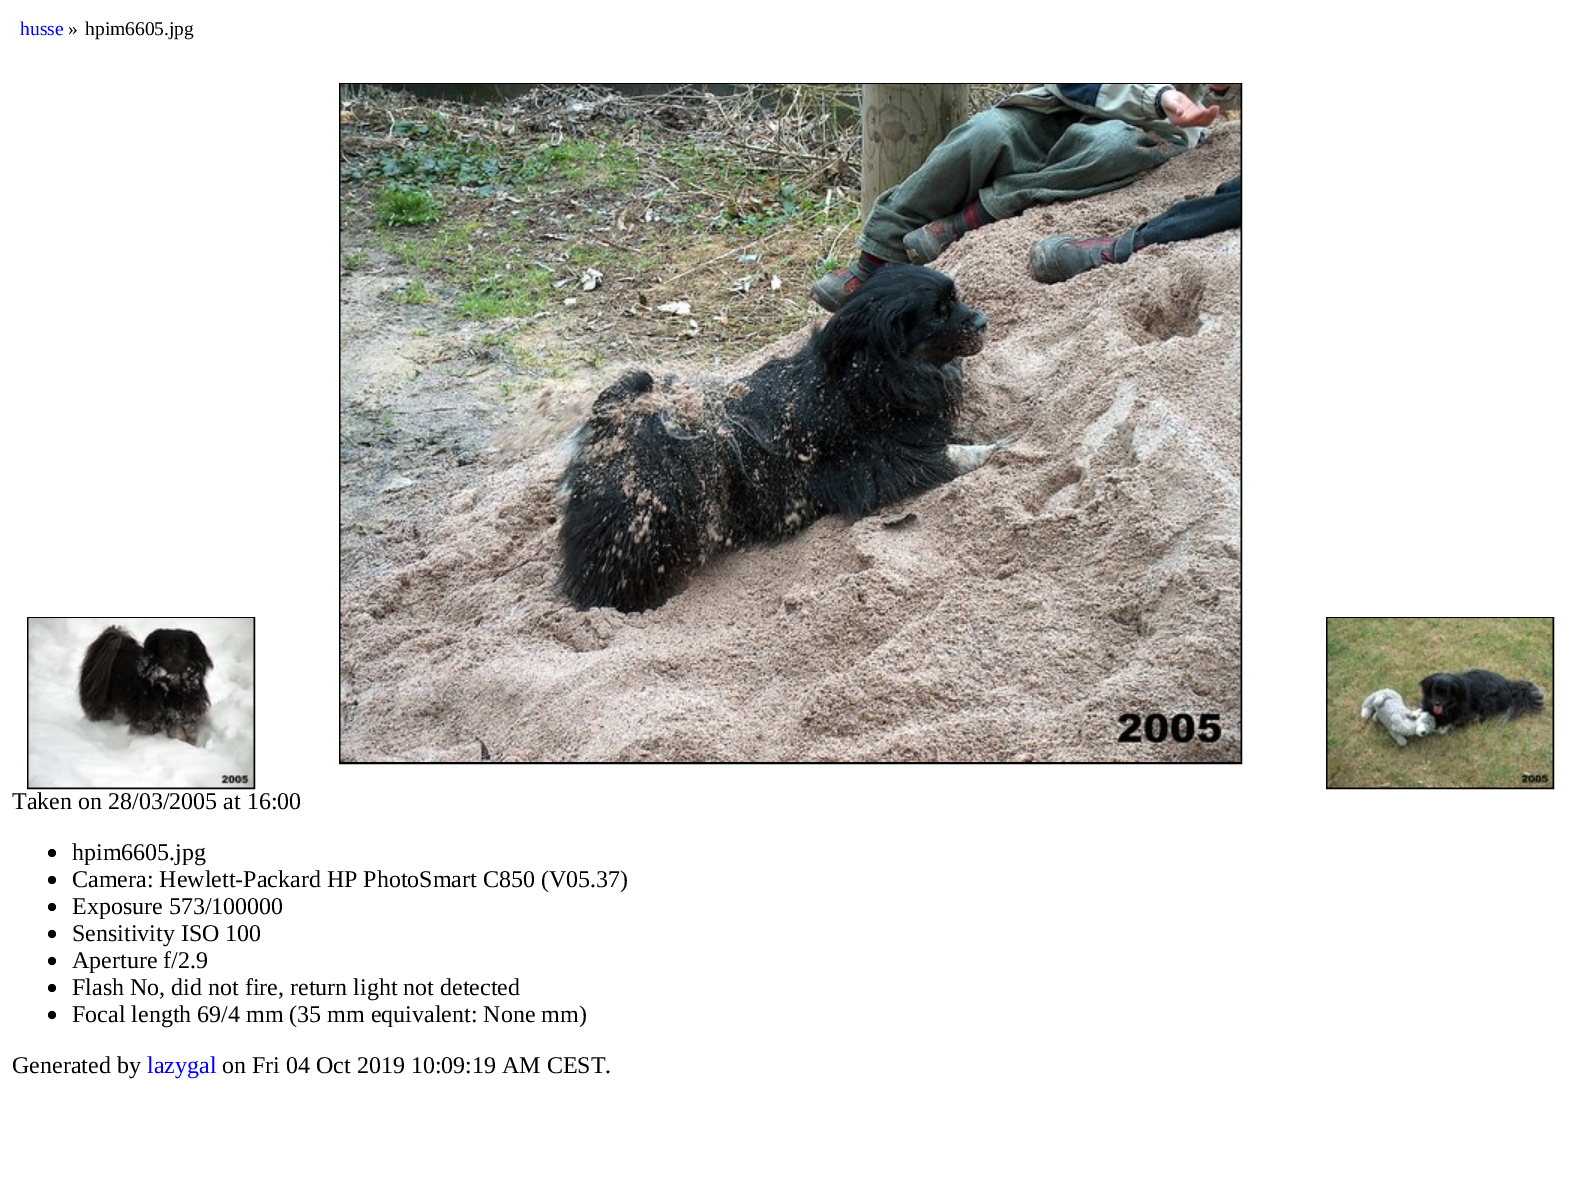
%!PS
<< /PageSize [1581 1185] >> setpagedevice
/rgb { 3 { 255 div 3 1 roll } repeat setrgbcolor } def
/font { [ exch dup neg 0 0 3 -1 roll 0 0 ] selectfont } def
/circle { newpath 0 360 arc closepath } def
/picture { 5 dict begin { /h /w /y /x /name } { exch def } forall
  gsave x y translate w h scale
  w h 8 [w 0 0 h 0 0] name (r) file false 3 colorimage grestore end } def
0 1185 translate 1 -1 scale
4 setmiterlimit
255 255 255 rgb
0 0 1581 1185 rectfill
0 0 0 rgb
2 setlinewidth
28 618 226 170 rectstroke
(img/1.rgb) 28 618 226 170 picture
1327 618 226 170 rectstroke
(img/2.rgb) 1327 618 226 170 picture
340 84 901 679 rectstroke
(img/3.rgb) 340 84 901 678 picture
52 853 4 circle fill
52 880 4 circle fill
52 907 4 circle fill
52 934 4 circle fill
52 961 4 circle fill
52 988 4 circle fill
52 1015 4 circle fill
/LiberationSerif-Regular 19.5 font
0 0 255 rgb
20 35 moveto (husse) show
0 0 0 rgb
68 35 moveto (») show
85 35 moveto (hpim6605.jpg) show
/LiberationSerif-Regular 24 font
[
  [(Taken on 28/03/2005 at 16:00) 12 809]
  [(hpim6605.jpg) 72 860]
  [(Camera: Hewlett-Packard HP PhotoSmart C850 \(V05.37\)) 72 887]
  [(Exposure 573/100000) 72 914]
  [(Sensitivity ISO 100) 72 941]
  [(Aperture f/2.9) 72 968]
  [(Flash No, did not fire, return light not detected) 72 995]
  [(Focal length 69/4 mm \(35 mm equivalent: None mm\)) 72 1022]
  [(Generated by) 12 1073]
] { aload pop moveto show } forall
0 0 255 rgb
147 1073 moveto (lazygal) show
0 0 0 rgb
222 1073 moveto (on Fri 04 Oct 2019 10:09:19 AM CEST.) show
showpage
